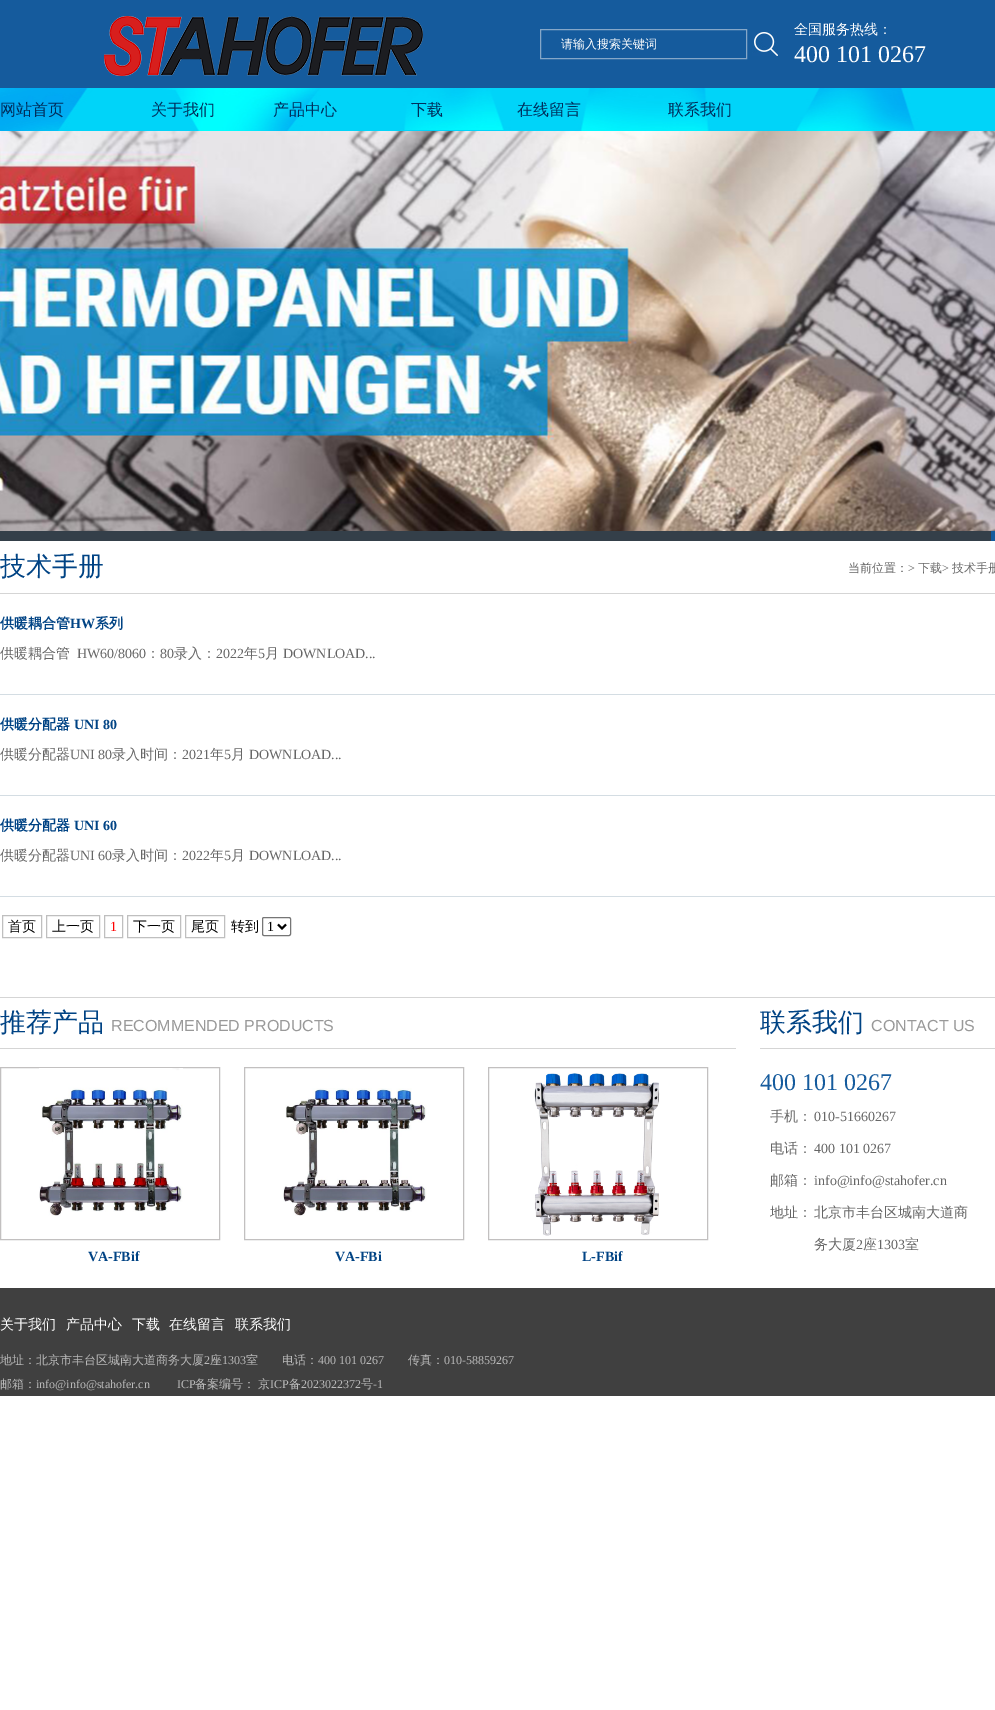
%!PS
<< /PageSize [995 1710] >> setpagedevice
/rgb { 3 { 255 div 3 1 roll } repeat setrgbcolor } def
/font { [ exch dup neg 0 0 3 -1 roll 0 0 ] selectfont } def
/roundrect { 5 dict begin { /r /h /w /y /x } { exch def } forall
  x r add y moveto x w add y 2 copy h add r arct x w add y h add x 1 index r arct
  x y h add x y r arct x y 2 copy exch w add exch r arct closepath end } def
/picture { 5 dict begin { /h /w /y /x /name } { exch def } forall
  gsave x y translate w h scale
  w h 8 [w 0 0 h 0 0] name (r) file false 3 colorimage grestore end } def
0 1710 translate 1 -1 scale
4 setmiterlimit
255 255 255 rgb
0 0 995 1710 rectfill
21 91 157 rgb
0 0 995 541 rectfill
(img/1.rgb) 104 16 319 60 picture
133 167 200 rgb
540.5 29.5 206 29 rectstroke
(img/2.rgb) 752 32 26 24 picture
(img/3.rgb) 0 88 995 43 picture
(img/4.rgb) 0 131 995 400 picture
[
  [0 531 991 10 52 63 73]
  [0 593 995 1 213 213 213]
  [0 694 995 1 212 221 227]
  [0 795 995 1 212 221 227]
  [0 896 995 1 212 221 227]
] { aload pop rgb rectfill } forall
191 191 191 rgb
2.5 915.5 39 22 rectstroke
46.5 915.5 53 22 rectstroke
104.5 915.5 18 22 rectstroke
127.5 915.5 53 22 rectstroke
185.5 915.5 39 22 rectstroke
118 118 118 rgb
262.5 917.5 28 18 1.5 roundrect stroke
0 0 0 rgb
2 setlinewidth
278 924.5 moveto 282 928.5 lineto 286 924.5 lineto stroke
213 213 213 rgb
0 997 995 1 rectfill
0 1048 736 1 rectfill
194 192 192 rgb
1 setlinewidth
0.5 1067.5 219 172 rectstroke
(img/5.rgb) 39 1068 144 148 picture
244.5 1067.5 219 172 rectstroke
(img/6.rgb) 283 1088 144 128 picture
488.5 1067.5 219 172 rectstroke
(img/7.rgb) 534 1073 126 163 picture
213 213 213 rgb
760 1048 235 1 rectfill
64 64 64 rgb
0 1288 995 108 rectfill
/WenQuanYiZenHei-Medium 12 font
255 255 255 rgb
561 48 moveto (请输入搜索关键词) show
/WenQuanYiZenHei-Medium 14 font
794 34 moveto (全国服务热线：) show
/LiberationSerif-Regular 24 font
794 62 moveto (400 101 0267) show
/WenQuanYiZenHei-Medium 16 font
0 46 92 rgb
[
  [(网站首页) 0 115]
  [(关于我们) 151 115]
  [(产品中心) 273 115]
  [(下载) 411 115]
  [(在线留言) 517 115]
  [(联系我们) 668 115]
] { aload pop moveto show } forall
/WenQuanYiZenHei-Medium 26 font
0 67 132 rgb
0 575 moveto (技术手册) show
/WenQuanYiZenHei-Medium 12 font
102 102 102 rgb
848 572 moveto (当前位置：) show
/LiberationSerif-Regular 12 font
908 572 moveto (>) show
/WenQuanYiZenHei-Medium 12 font
918 572 moveto (下载) show
/LiberationSerif-Regular 12 font
942 572 moveto (>) show
/WenQuanYiZenHei-Medium 12 font
952 572 moveto (技术手册) show
/WenQuanYiZenHei-Bold 14 font
0 67 132 rgb
0 628 moveto (供暖耦合管) show
/LiberationSerif-Bold 14 font
70 628 moveto (HW) show
/WenQuanYiZenHei-Bold 14 font
95 628 moveto (系列) show
/WenQuanYiZenHei-Medium 14 font
102 102 102 rgb
0 658 moveto (供暖耦合管) show
/LiberationSerif-Regular 14 font
77 658 moveto (HW60/8060) show
/WenQuanYiZenHei-Medium 14 font
146 658 moveto (：) show
/LiberationSerif-Regular 14 font
160 658 moveto (80) show
/WenQuanYiZenHei-Medium 14 font
174 658 moveto (录入：) show
/LiberationSerif-Regular 14 font
216 658 moveto (2022) show
/WenQuanYiZenHei-Medium 14 font
244 658 moveto (年) show
/LiberationSerif-Regular 14 font
258 658 moveto (5) show
/WenQuanYiZenHei-Medium 14 font
265 658 moveto (月) show
/LiberationSerif-Regular 14 font
283 658 moveto (DOWNLOAD...) show
/WenQuanYiZenHei-Bold 14 font
0 67 132 rgb
0 729 moveto (供暖分配器) show
/LiberationSerif-Bold 14 font
74 729 moveto (UNI 80) show
/WenQuanYiZenHei-Medium 14 font
102 102 102 rgb
0 759 moveto (供暖分配器) show
/LiberationSerif-Regular 14 font
70 759 moveto (UNI 80) show
/WenQuanYiZenHei-Medium 14 font
112 759 moveto (录入时间：) show
/LiberationSerif-Regular 14 font
182 759 moveto (2021) show
/WenQuanYiZenHei-Medium 14 font
210 759 moveto (年) show
/LiberationSerif-Regular 14 font
224 759 moveto (5) show
/WenQuanYiZenHei-Medium 14 font
231 759 moveto (月) show
/LiberationSerif-Regular 14 font
249 759 moveto (DOWNLOAD...) show
/WenQuanYiZenHei-Bold 14 font
0 67 132 rgb
0 830 moveto (供暖分配器) show
/LiberationSerif-Bold 14 font
74 830 moveto (UNI 60) show
/WenQuanYiZenHei-Medium 14 font
102 102 102 rgb
0 860 moveto (供暖分配器) show
/LiberationSerif-Regular 14 font
70 860 moveto (UNI 60) show
/WenQuanYiZenHei-Medium 14 font
112 860 moveto (录入时间：) show
/LiberationSerif-Regular 14 font
182 860 moveto (2022) show
/WenQuanYiZenHei-Medium 14 font
210 860 moveto (年) show
/LiberationSerif-Regular 14 font
224 860 moveto (5) show
/WenQuanYiZenHei-Medium 14 font
231 860 moveto (月) show
/LiberationSerif-Regular 14 font
249 860 moveto (DOWNLOAD...) show
/WenQuanYiZenHei-Medium 14 font
0 0 0 rgb
8 931 moveto (首页) show
52 931 moveto (上一页) show
/LiberationSerif-Regular 14 font
255 0 0 rgb
110 931 moveto (1) show
/WenQuanYiZenHei-Medium 14 font
0 0 0 rgb
[
  [(下一页) 133 931]
  [(尾页) 191 931]
  [(转到) 231 931]
] { aload pop moveto show } forall
/LiberationSerif-Regular 14 font
267 931 moveto (1) show
/WenQuanYiZenHei-Medium 26 font
0 67 132 rgb
0 1031 moveto (推荐产品) show
/LiberationSans-Regular 16 font
153 153 153 rgb
111 1031 moveto (RECOMMENDED PRODUCTS) show
/LiberationSerif-Bold 14 font
0 67 132 rgb
[
  [(VA-FBif) 88 1261]
  [(VA-FBi) 335 1261]
  [(L-FBif) 582 1261]
] { aload pop moveto show } forall
/WenQuanYiZenHei-Medium 26 font
760 1031 moveto (联系我们) show
/LiberationSans-Regular 16 font
153 153 153 rgb
871 1031 moveto (CONTACT US) show
/LiberationSerif-Regular 24 font
21 91 157 rgb
760 1090 moveto (400 101 0267) show
/WenQuanYiZenHei-Medium 14 font
102 102 102 rgb
770 1121 moveto (手机：) show
/LiberationSerif-Regular 14 font
814 1121 moveto (010-51660267) show
/WenQuanYiZenHei-Medium 14 font
770 1153 moveto (电话：) show
/LiberationSerif-Regular 14 font
814 1153 moveto (400 101 0267) show
/WenQuanYiZenHei-Medium 14 font
770 1185 moveto (邮箱：) show
/LiberationSerif-Regular 14 font
814 1185 moveto (info@info@stahofer.cn) show
/WenQuanYiZenHei-Medium 14 font
[
  [(地址：) 770 1217]
  [(北京市丰台区城南大道商) 814 1217]
  [(务大厦) 814 1249]
] { aload pop moveto show } forall
/LiberationSerif-Regular 14 font
856 1249 moveto (2) show
/WenQuanYiZenHei-Medium 14 font
863 1249 moveto (座) show
/LiberationSerif-Regular 14 font
877 1249 moveto (1303) show
/WenQuanYiZenHei-Medium 14 font
905 1249 moveto (室) show
255 255 255 rgb
[
  [(关于我们) 0 1329]
  [(产品中心) 66 1329]
  [(下载) 132 1329]
  [(在线留言) 169 1329]
  [(联系我们) 235 1329]
] { aload pop moveto show } forall
/WenQuanYiZenHei-Medium 12 font
186 186 186 rgb
0 1364 moveto (地址：北京市丰台区城南大道商务大厦) show
/LiberationSerif-Regular 12 font
204 1364 moveto (2) show
/WenQuanYiZenHei-Medium 12 font
210 1364 moveto (座) show
/LiberationSerif-Regular 12 font
222 1364 moveto (1303) show
/WenQuanYiZenHei-Medium 12 font
246 1364 moveto (室　　电话：) show
/LiberationSerif-Regular 12 font
318 1364 moveto (400 101 0267) show
/WenQuanYiZenHei-Medium 12 font
408 1364 moveto (传真：) show
/LiberationSerif-Regular 12 font
444 1364 moveto (010-58859267) show
/WenQuanYiZenHei-Medium 12 font
0 1388 moveto (邮箱：) show
/LiberationSerif-Regular 12 font
36 1388 moveto (info@info@stahofer.cn) show
177 1388 moveto (ICP) show
/WenQuanYiZenHei-Medium 12 font
195 1388 moveto (备案编号：) show
258 1388 moveto (京) show
/LiberationSerif-Regular 12 font
270 1388 moveto (ICP) show
/WenQuanYiZenHei-Medium 12 font
289 1388 moveto (备) show
/LiberationSerif-Regular 12 font
301 1388 moveto (2023022372) show
/WenQuanYiZenHei-Medium 12 font
361 1388 moveto (号) show
/LiberationSerif-Regular 12 font
373 1388 moveto (-1) show
showpage
